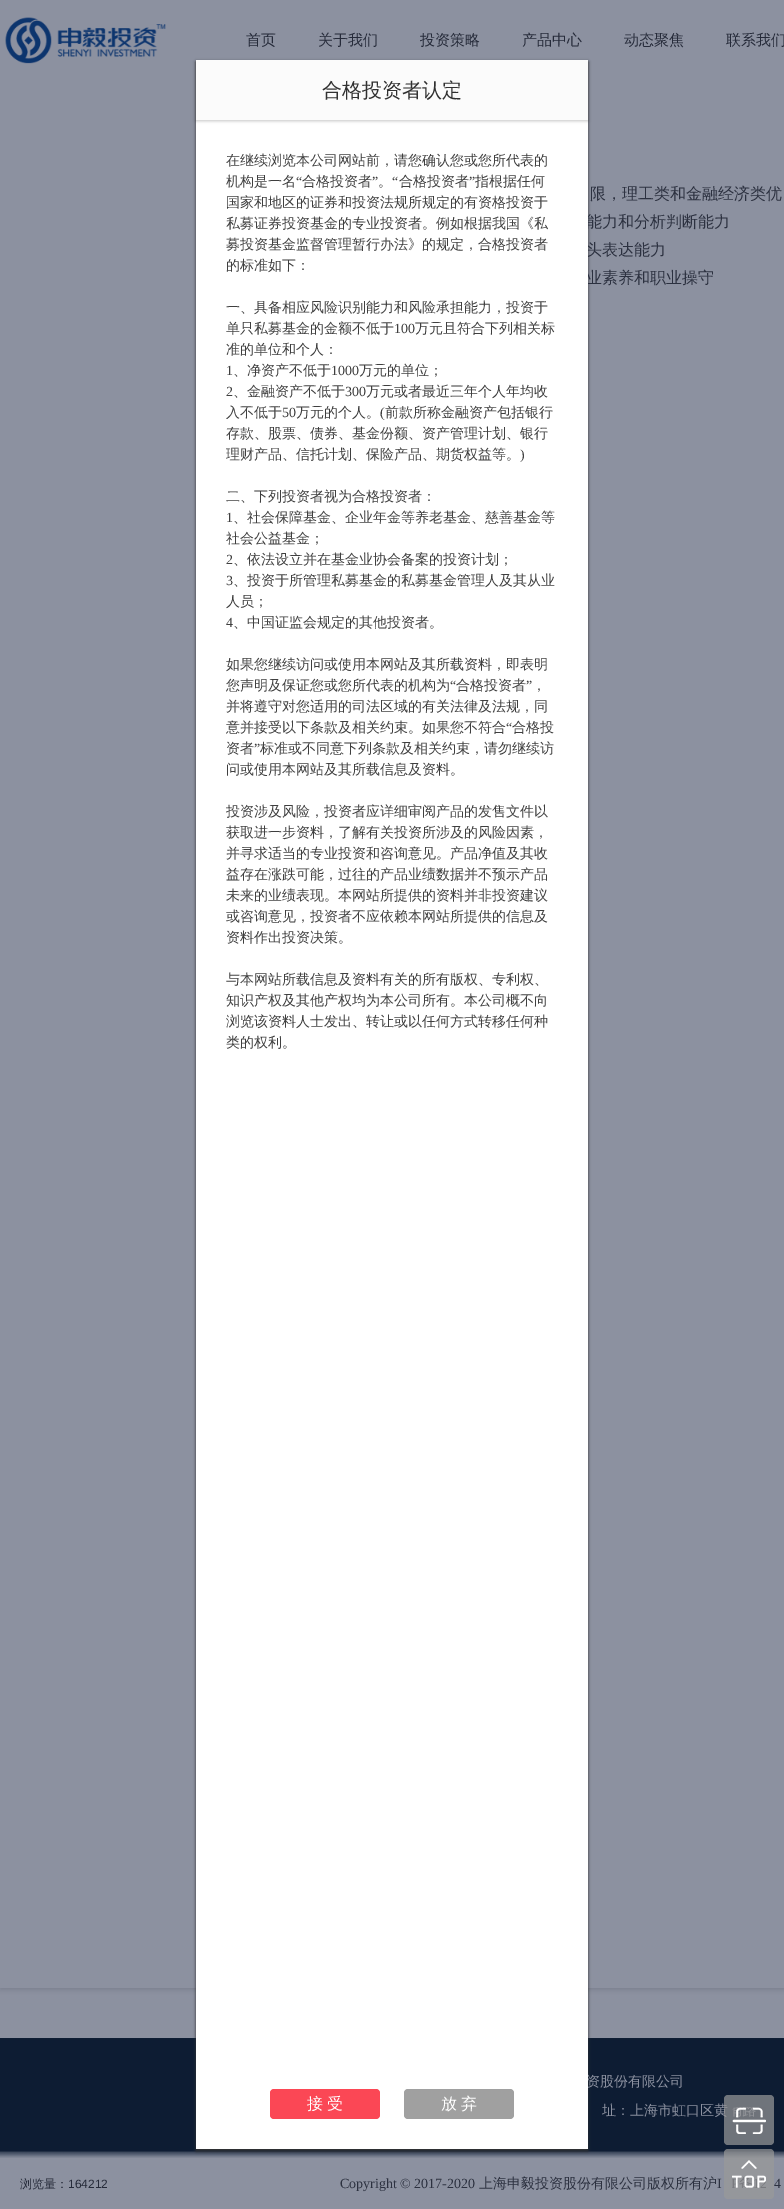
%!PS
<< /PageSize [784 2209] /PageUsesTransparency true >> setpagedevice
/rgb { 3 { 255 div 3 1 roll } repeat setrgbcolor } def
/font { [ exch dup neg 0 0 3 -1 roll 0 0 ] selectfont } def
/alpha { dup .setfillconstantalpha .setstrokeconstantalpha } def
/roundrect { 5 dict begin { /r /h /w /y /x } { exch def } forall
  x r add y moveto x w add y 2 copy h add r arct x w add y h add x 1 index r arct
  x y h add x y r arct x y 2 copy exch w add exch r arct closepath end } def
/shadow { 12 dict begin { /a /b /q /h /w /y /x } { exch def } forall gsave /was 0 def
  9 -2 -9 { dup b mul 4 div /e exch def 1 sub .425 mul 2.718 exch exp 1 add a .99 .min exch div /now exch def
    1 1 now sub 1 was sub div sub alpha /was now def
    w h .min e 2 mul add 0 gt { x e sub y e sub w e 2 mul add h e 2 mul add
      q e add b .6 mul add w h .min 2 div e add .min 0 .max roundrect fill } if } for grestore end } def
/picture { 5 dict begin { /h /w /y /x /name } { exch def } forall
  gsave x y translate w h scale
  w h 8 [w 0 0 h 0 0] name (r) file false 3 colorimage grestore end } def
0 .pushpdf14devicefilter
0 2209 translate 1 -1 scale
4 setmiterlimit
140 145 160 rgb
0 0 784 2209 rectfill
gsave
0 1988 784 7 rectclip
123 128 143 rgb
0 -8 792 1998 0 2.5 1 shadow
grestore
(img/1.rgb) 5 17 161 47 picture
(img/2.rgb) 0 2038 784 120 picture
51 51 51 rgb
196 62 392 2089 0 1.5 1 shadow
0.7 alpha
153 153 153 rgb
724 2149 50 50 4 roundrect fill
1 alpha
(img/4.rgb) 732 2160 34 28 picture
/WenQuanYiZenHei-Medium 15 font
38 43 58 rgb
[
  [(首页) 246 45]
  [(关于我们) 318 45]
  [(投资策略) 420 45]
  [(产品中心) 522 45]
  [(动态聚焦) 624 45]
  [(联系我们) 726 45]
] { aload pop moveto show } forall
/WenQuanYiZenHei-Medium 16 font
44 49 64 rgb
[
  [(限，理工类和金融经济类优) 590 199]
  [(能力和分析判断能力) 586 227]
  [(头表达能力) 586 255]
  [(业素养和职业操守) 586 283]
] { aload pop moveto show } forall
/WenQuanYiZenHei-Medium 14 font
140 145 160 rgb
586 2086 moveto (资股份有限公司) show
255 255 255 rgb
196 120 392 2029 rectfill
63 63 63 rgb
[
  [(类的权利。) 226 1047]
  [(浏览该资料人士发出、转让或以任何方式转移任何种) 226 1026]
  [(知识产权及其他产权均为本公司所有。本公司概不向) 226 1005]
  [(与本网站所载信息及资料有关的所有版权、专利权、) 226 984]
  [(资料作出投资决策。) 226 942]
  [(或咨询意见，投资者不应依赖本网站所提供的信息及) 226 921]
  [(未来的业绩表现。本网站所提供的资料并非投资建议) 226 900]
  [(益存在涨跌可能，过往的产品业绩数据并不预示产品) 226 879]
  [(并寻求适当的专业投资和咨询意见。产品净值及其收) 226 858]
  [(获取进一步资料，了解有关投资所涉及的风险因素，) 226 837]
  [(投资涉及风险，投资者应详细审阅产品的发售文件以) 226 816]
  [(问或使用本网站及其所载信息及资料。) 226 774]
  [(标准或不同意下列条款及相关约束，请勿继续访) 260 753]
] { aload pop moveto show } forall
/LiberationSerif-Regular 14 font
254 753 moveto (”) show
/WenQuanYiZenHei-Medium 14 font
226 753 moveto (资者) show
512 732 moveto (合格投) show
/LiberationSerif-Regular 14 font
506 732 moveto (“) show
/WenQuanYiZenHei-Medium 14 font
[
  [(意并接受以下条款及相关约束。如果您不符合) 226 732]
  [(并将遵守对您适用的司法区域的有关法律及法规，同) 226 711]
  [(，) 532 690]
] { aload pop moveto show } forall
/LiberationSerif-Regular 14 font
526 690 moveto (”) show
/WenQuanYiZenHei-Medium 14 font
456 690 moveto (合格投资者) show
/LiberationSerif-Regular 14 font
450 690 moveto (“) show
/WenQuanYiZenHei-Medium 14 font
[
  [(您声明及保证您或您所代表的机构为) 226 690]
  [(如果您继续访问或使用本网站及其所载资料，即表明) 226 669]
  [(、中国证监会规定的其他投资者。) 233 627]
] { aload pop moveto show } forall
/LiberationSerif-Regular 14 font
226 627 moveto (4) show
/WenQuanYiZenHei-Medium 14 font
226 606 moveto (人员；) show
233 585 moveto (、投资于所管理私募基金的私募基金管理人及其从业) show
/LiberationSerif-Regular 14 font
226 585 moveto (3) show
/WenQuanYiZenHei-Medium 14 font
233 564 moveto (、依法设立并在基金业协会备案的投资计划；) show
/LiberationSerif-Regular 14 font
226 564 moveto (2) show
/WenQuanYiZenHei-Medium 14 font
226 543 moveto (社会公益基金；) show
233 522 moveto (、社会保障基金、企业年金等养老基金、慈善基金等) show
/LiberationSerif-Regular 14 font
226 522 moveto (1) show
/WenQuanYiZenHei-Medium 14 font
226 501 moveto (二、下列投资者视为合格投资者：) show
/LiberationSerif-Regular 14 font
520 459 moveto (\)) show
/WenQuanYiZenHei-Medium 14 font
226 459 moveto (理财产品、信托计划、保险产品、期货权益等。) show
226 438 moveto (存款、股票、债券、基金份额、资产管理计划、银行) show
/LiberationSerif-Regular 14 font
380 417 moveto (\() show
/WenQuanYiZenHei-Medium 14 font
385 417 moveto (前款所称金融资产包括银行) show
296 417 moveto (万元的个人。) show
/LiberationSerif-Regular 14 font
282 417 moveto (50) show
/WenQuanYiZenHei-Medium 14 font
226 417 moveto (入不低于) show
366 396 moveto (万元或者最近三年个人年均收) show
/LiberationSerif-Regular 14 font
345 396 moveto (300) show
/WenQuanYiZenHei-Medium 14 font
233 396 moveto (、金融资产不低于) show
/LiberationSerif-Regular 14 font
226 396 moveto (2) show
/WenQuanYiZenHei-Medium 14 font
359 375 moveto (万元的单位；) show
/LiberationSerif-Regular 14 font
331 375 moveto (1000) show
/WenQuanYiZenHei-Medium 14 font
233 375 moveto (、净资产不低于) show
/LiberationSerif-Regular 14 font
226 375 moveto (1) show
/WenQuanYiZenHei-Medium 14 font
226 354 moveto (准的单位和个人：) show
415 333 moveto (万元且符合下列相关标) show
/LiberationSerif-Regular 14 font
394 333 moveto (100) show
/WenQuanYiZenHei-Medium 14 font
[
  [(单只私募基金的金额不低于) 226 333]
  [(一、具备相应风险识别能力和风险承担能力，投资于) 226 312]
  [(的标准如下：) 226 270]
  [(募投资基金监督管理暂行办法》的规定，合格投资者) 226 249]
  [(私募证券投资基金的专业投资者。例如根据我国《私) 226 228]
  [(国家和地区的证券和投资法规所规定的有资格投资于) 226 207]
] { aload pop moveto show } forall
/LiberationSerif-Regular 14 font
469 186 moveto (”) show
/WenQuanYiZenHei-Medium 14 font
475 186 moveto (指根据任何) show
/LiberationSerif-Regular 14 font
392 186 moveto (“) show
/WenQuanYiZenHei-Medium 14 font
399 186 moveto (合格投资者) show
378 186 moveto (。) show
/LiberationSerif-Regular 14 font
372 186 moveto (”) show
/WenQuanYiZenHei-Medium 14 font
302 186 moveto (合格投资者) show
/LiberationSerif-Regular 14 font
296 186 moveto (“) show
/WenQuanYiZenHei-Medium 14 font
226 186 moveto (机构是一名) show
226 165 moveto (在继续浏览本公司网站前，请您确认您或您所代表的) show
160 160 160 rgb
404 2089 110 30 4 roundrect fill
/WenQuanYiZenHei-Medium 16 font
255 255 255 rgb
461 2109 moveto (弃) show
441 2109 moveto (放) show
251 71 85 rgb
270 2089 110 30 4 roundrect fill
255 255 255 rgb
327 2109 moveto (受) show
307 2109 moveto (接) show
0 0 0 rgb
196 61 392 60 0 1.5 0.22 shadow
251 251 251 rgb
196 60 392 60 rectfill
/WenQuanYiZenHei-Medium 20 font
49 49 49 rgb
322 97 moveto (合格投资者认定) show
/WenQuanYiZenHei-Medium 14 font
140 145 160 rgb
602 2115 moveto (址：上海市虹口区黄) show
/WenQuanYiZenHei-Medium 12 font
38 43 58 rgb
20 2188 moveto (浏览量：) show
/LiberationSans-Regular 12 font
68 2188 moveto (164212) show
/LiberationSerif-Regular 14 font
44 49 64 rgb
340 2188 moveto (Copyright © 2017-2020) show
/WenQuanYiZenHei-Medium 14 font
479 2188 moveto (上海申毅投资股份有限公司版权所有沪) show
/LiberationSerif-Regular 14 font
717 2188 moveto (I) show
774 2188 moveto (4) show
0.7 alpha
153 153 153 rgb
724 2095 50 50 4 roundrect fill
1 alpha
(img/3.rgb) 732 2107 34 27 picture
.poppdf14devicefilter showpage
